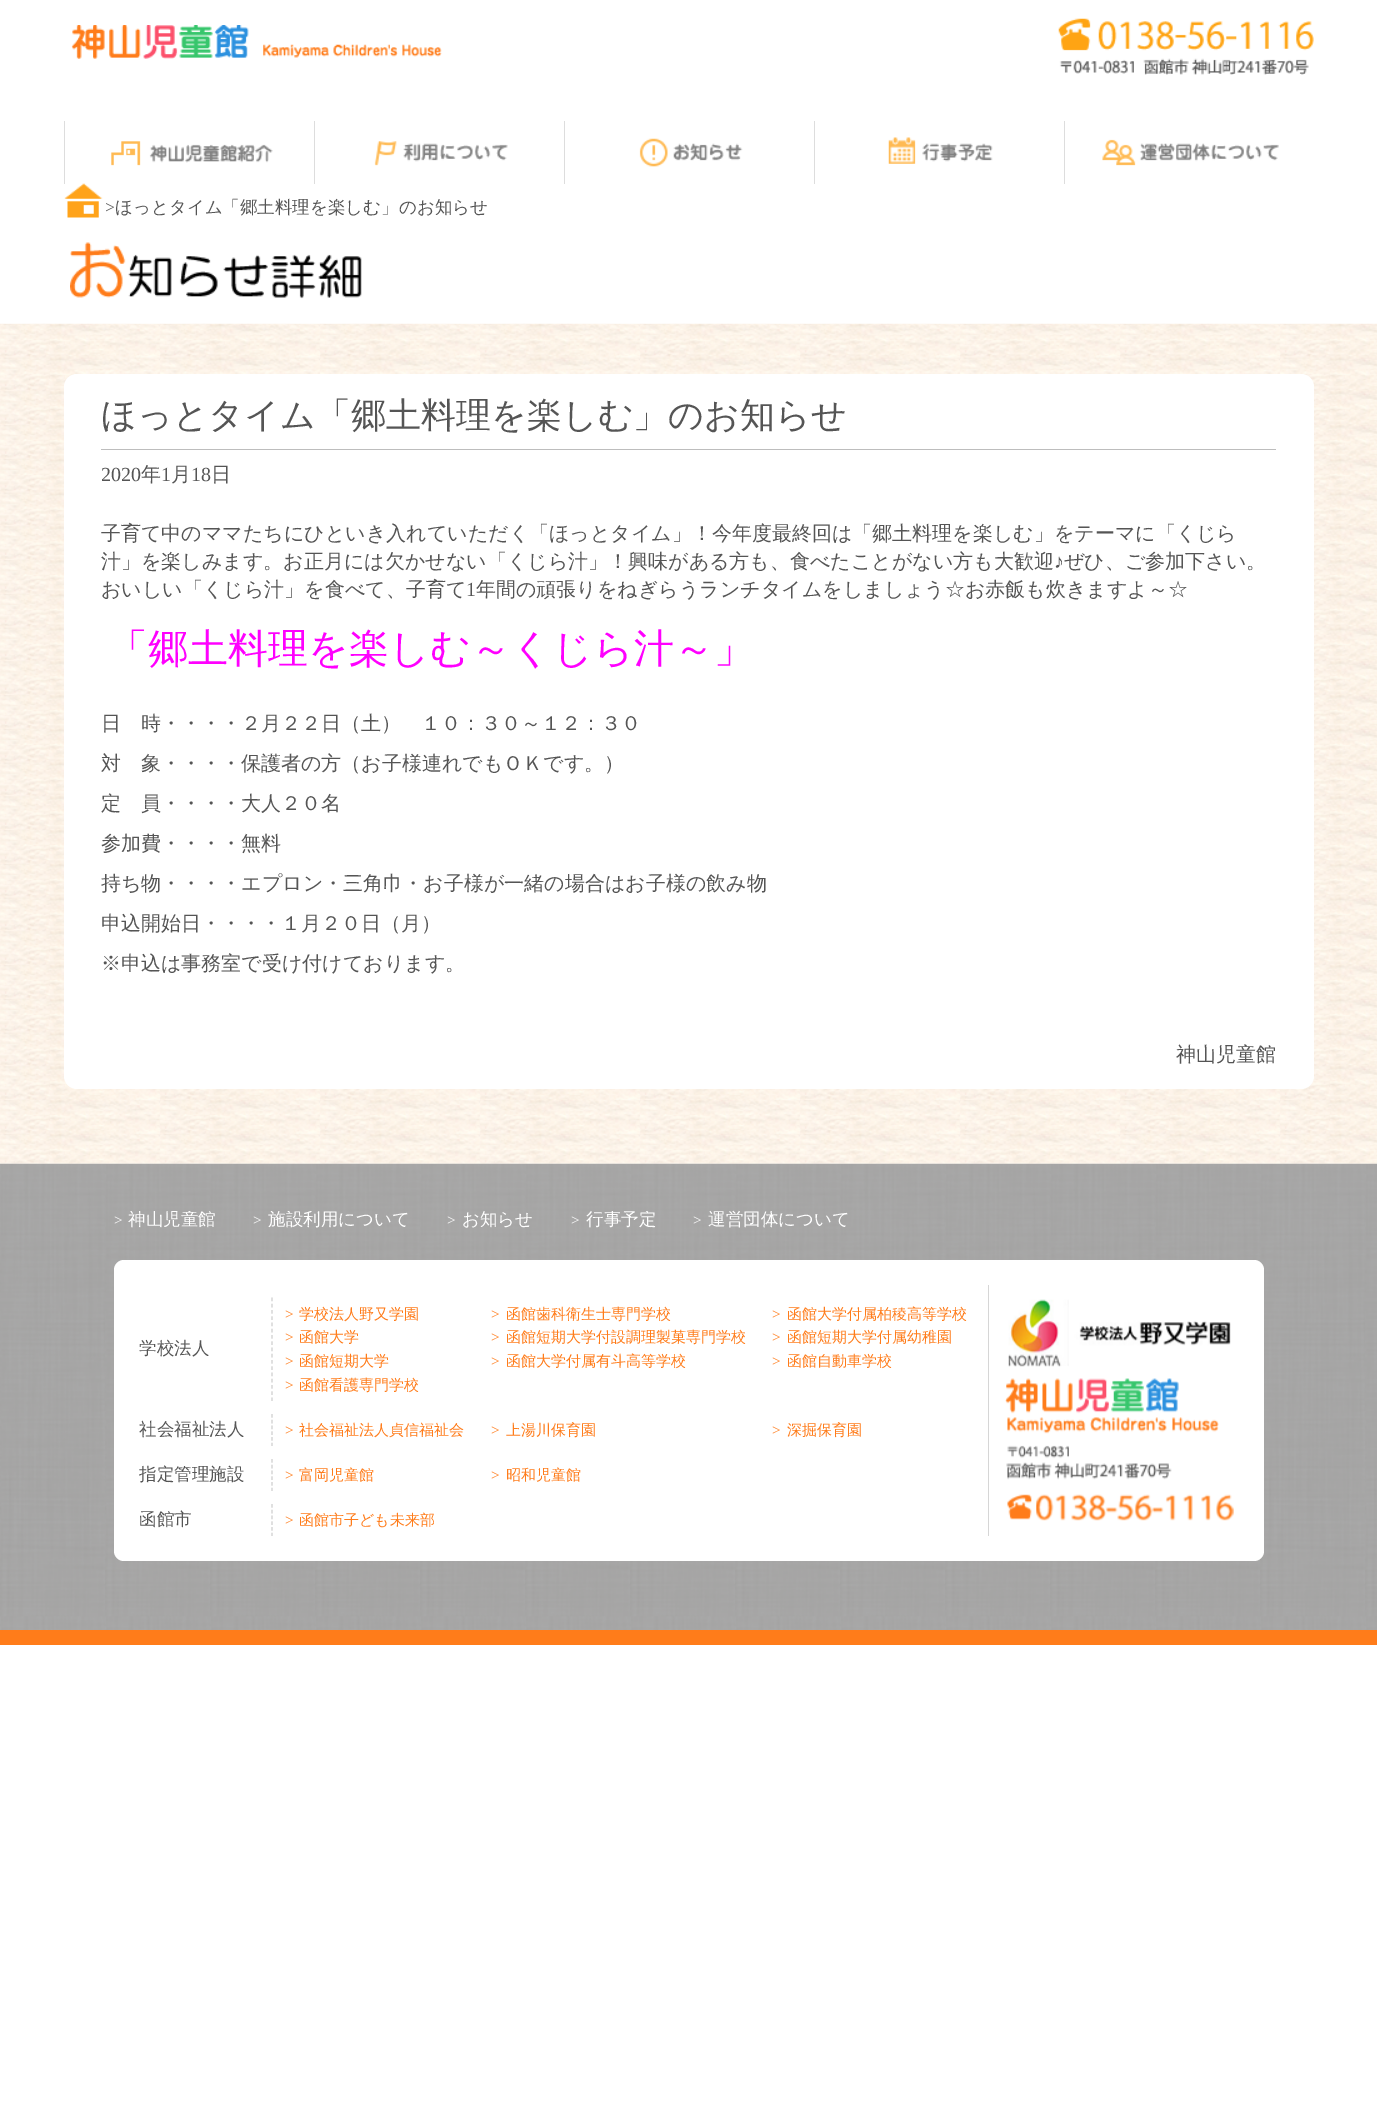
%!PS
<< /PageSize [1377 2125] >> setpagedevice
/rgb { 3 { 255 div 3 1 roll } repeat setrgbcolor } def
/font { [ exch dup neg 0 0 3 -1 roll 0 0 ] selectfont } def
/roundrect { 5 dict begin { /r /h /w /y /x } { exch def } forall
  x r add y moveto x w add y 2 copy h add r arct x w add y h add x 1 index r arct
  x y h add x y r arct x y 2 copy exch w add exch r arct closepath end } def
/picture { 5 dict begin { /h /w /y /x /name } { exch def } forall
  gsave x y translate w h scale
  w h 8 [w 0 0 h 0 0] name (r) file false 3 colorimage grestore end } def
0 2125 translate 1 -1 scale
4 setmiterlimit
255 255 255 rgb
0 0 1377 2125 rectfill
(img/1.rgb) 71 25 371 34 picture
(img/2.rgb) 1058 18 256 57 picture
(img/3.rgb) 111 141 162 25 picture
(img/8.rgb) 64 183 39 35 picture
221 221 221 rgb
64 121 1 63 rectfill
(img/4.rgb) 374 141 134 25 picture
314 121 1 63 rectfill
(img/5.rgb) 639 138 104 29 picture
564 121 1 63 rectfill
(img/6.rgb) 888 137 105 27 picture
814 121 1 63 rectfill
(img/7.rgb) 1102 139 177 27 picture
1064 121 1 63 rectfill
(img/9.rgb) 70 242 292 57 picture
(img/10.rgb) 0 323 1377 841 picture
255 255 255 rgb
64 374 1250 715 13 roundrect fill
189 189 189 rgb
101 449 1175 1 rectfill
(img/11.rgb) 0 1163 1377 467 picture
255 124 26 rgb
0 1630 1377 15 rectfill
255 255 255 rgb
114 1260 1150 301 10 roundrect fill
214 214 214 rgb
988 1285 1 251 rectfill
1.2 setlinewidth
[3.75 2.5] 0 setdash
272 1297.5 moveto 272 1401 lineto stroke
[3.75 2] 0 setdash
272 1414 moveto 272 1446 lineto stroke
272 1459 moveto 272 1491 lineto stroke
272 1504 moveto 272 1536 lineto stroke
(img/12.rgb) 1008 1299 223 68 picture
(img/13.rgb) 1005 1378 214 56 picture
(img/14.rgb) 1006 1445 166 35 picture
(img/15.rgb) 1007 1494 227 27 picture
/LiberationSerif-Regular 17.5 font
85 85 85 rgb
105 213 moveto (>) show
/WenQuanYiZenHei-Medium 17.5 font
115 213 moveto (ほっとタイム「郷土料理を楽しむ」のお知らせ) show
/WenQuanYiZenHei-Medium 35 font
101 427 moveto (ほっとタイム「郷土料理を楽しむ」のお知らせ) show
/LiberationSerif-Regular 20 font
101 481 moveto (2020) show
/WenQuanYiZenHei-Medium 20 font
141 481 moveto (年) show
/LiberationSerif-Regular 20 font
161 481 moveto (1) show
/WenQuanYiZenHei-Medium 20 font
171 481 moveto (月) show
/LiberationSerif-Regular 20 font
191 481 moveto (18) show
/WenQuanYiZenHei-Medium 20 font
[
  [(日) 211 481]
  [(子育て中のママたちにひといき入れていただく「ほっとタイム」！今年度最終回は「郷土料理を楽しむ」をテーマに「くじら) 101 540]
  [(汁」を楽しみます。お正月には欠かせない「くじら汁」！興味がある方も、食べたことがない方も大歓迎) 101 568]
] { aload pop moveto show } forall
/LiberationSerif-Regular 20 font
1054 568 moveto (♪) show
/WenQuanYiZenHei-Medium 20 font
1064 568 moveto (ぜひ、ご参加下さい。) show
101 596 moveto (おいしい「くじら汁」を食べて、子育て) show
/LiberationSerif-Regular 20 font
466 596 moveto (1) show
/WenQuanYiZenHei-Medium 20 font
476 596 moveto (年間の頑張りをねぎらうランチタイムをしましょう☆お赤飯も炊きますよ～☆) show
/WenQuanYiZenHei-Medium 40 font
255 0 255 rgb
108 662 moveto (「郷土料理を楽しむ～くじら汁～」) show
/WenQuanYiZenHei-Medium 20 font
85 85 85 rgb
[
  [(日　時・・・・２月２２日（土）　１０：３０～１２：３０) 101 730]
  [(対　象・・・・保護者の方（お子様連れでもＯＫです。）) 101 770]
  [(定　員・・・・大人２０名) 101 810]
  [(参加費・・・・無料) 101 850]
  [(持ち物・・・・エプロン・三角巾・お子様が一緒の場合はお子様の飲み物) 101 890]
  [(申込開始日・・・・１月２０日（月）) 101 930]
  [(※申込は事務室で受け付けております。) 101 970]
  [(神山児童館) 1176 1061]
] { aload pop moveto show } forall
/LiberationSerif-Regular 15 font
255 255 255 rgb
114 1225 moveto (>) show
gsave
114 1211 1150 18 rectclip
/WenQuanYiZenHei-Medium 17.5 font
128 1225 moveto (神山児童館) show
grestore
253 1225 moveto (>) show
gsave
114 1211 1150 18 rectclip
/WenQuanYiZenHei-Medium 17.5 font
268 1225 moveto (施設利用について) show
grestore
447 1225 moveto (>) show
/WenQuanYiZenHei-Medium 17.5 font
462 1225 moveto (お知らせ) show
/LiberationSerif-Regular 15 font
571 1225 moveto (>) show
gsave
114 1211 1150 18 rectclip
/WenQuanYiZenHei-Medium 17.5 font
586 1225 moveto (行事予定) show
grestore
693 1225 moveto (>) show
/WenQuanYiZenHei-Medium 17.5 font
708 1225 moveto (運営団体について) show
85 85 85 rgb
139 1354 moveto (学校法人) show
/LiberationSerif-Regular 15 font
255 124 26 rgb
285 1319 moveto (>) show
/WenQuanYiZenHei-Medium 15 font
299 1319 moveto (学校法人野又学園) show
/LiberationSerif-Regular 15 font
285 1342 moveto (>) show
/WenQuanYiZenHei-Medium 15 font
299 1342 moveto (函館大学) show
/LiberationSerif-Regular 15 font
285 1366 moveto (>) show
/WenQuanYiZenHei-Medium 15 font
299 1366 moveto (函館短期大学) show
/LiberationSerif-Regular 15 font
285 1390 moveto (>) show
/WenQuanYiZenHei-Medium 15 font
299 1390 moveto (函館看護専門学校) show
/LiberationSerif-Regular 15 font
491 1319 moveto (>) show
/WenQuanYiZenHei-Medium 15 font
506 1319 moveto (函館歯科衛生士専門学校) show
/LiberationSerif-Regular 15 font
491 1342 moveto (>) show
/WenQuanYiZenHei-Medium 15 font
506 1342 moveto (函館短期大学付設調理製菓専門学校) show
/LiberationSerif-Regular 15 font
491 1366 moveto (>) show
/WenQuanYiZenHei-Medium 15 font
506 1366 moveto (函館大学付属有斗高等学校) show
/LiberationSerif-Regular 15 font
772 1319 moveto (>) show
/WenQuanYiZenHei-Medium 15 font
787 1319 moveto (函館大学付属柏稜高等学校) show
/LiberationSerif-Regular 15 font
772 1342 moveto (>) show
/WenQuanYiZenHei-Medium 15 font
787 1342 moveto (函館短期大学付属幼稚園) show
/LiberationSerif-Regular 15 font
772 1366 moveto (>) show
/WenQuanYiZenHei-Medium 15 font
787 1366 moveto (函館自動車学校) show
/WenQuanYiZenHei-Medium 17.5 font
85 85 85 rgb
139 1435 moveto (社会福祉法人) show
/LiberationSerif-Regular 15 font
255 124 26 rgb
285 1435 moveto (>) show
/WenQuanYiZenHei-Medium 15 font
299 1435 moveto (社会福祉法人貞信福祉会) show
/LiberationSerif-Regular 15 font
491 1435 moveto (>) show
/WenQuanYiZenHei-Medium 15 font
506 1435 moveto (上湯川保育園) show
/LiberationSerif-Regular 15 font
772 1435 moveto (>) show
/WenQuanYiZenHei-Medium 15 font
787 1435 moveto (深掘保育園) show
/WenQuanYiZenHei-Medium 17.5 font
85 85 85 rgb
139 1480 moveto (指定管理施設) show
/LiberationSerif-Regular 15 font
255 124 26 rgb
285 1480 moveto (>) show
/WenQuanYiZenHei-Medium 15 font
299 1480 moveto (富岡児童館) show
/LiberationSerif-Regular 15 font
491 1480 moveto (>) show
/WenQuanYiZenHei-Medium 15 font
506 1480 moveto (昭和児童館) show
/WenQuanYiZenHei-Medium 17.5 font
85 85 85 rgb
139 1525 moveto (函館市) show
/LiberationSerif-Regular 15 font
255 124 26 rgb
285 1525 moveto (>) show
/WenQuanYiZenHei-Medium 15 font
299 1525 moveto (函館市子ども未来部) show
showpage
